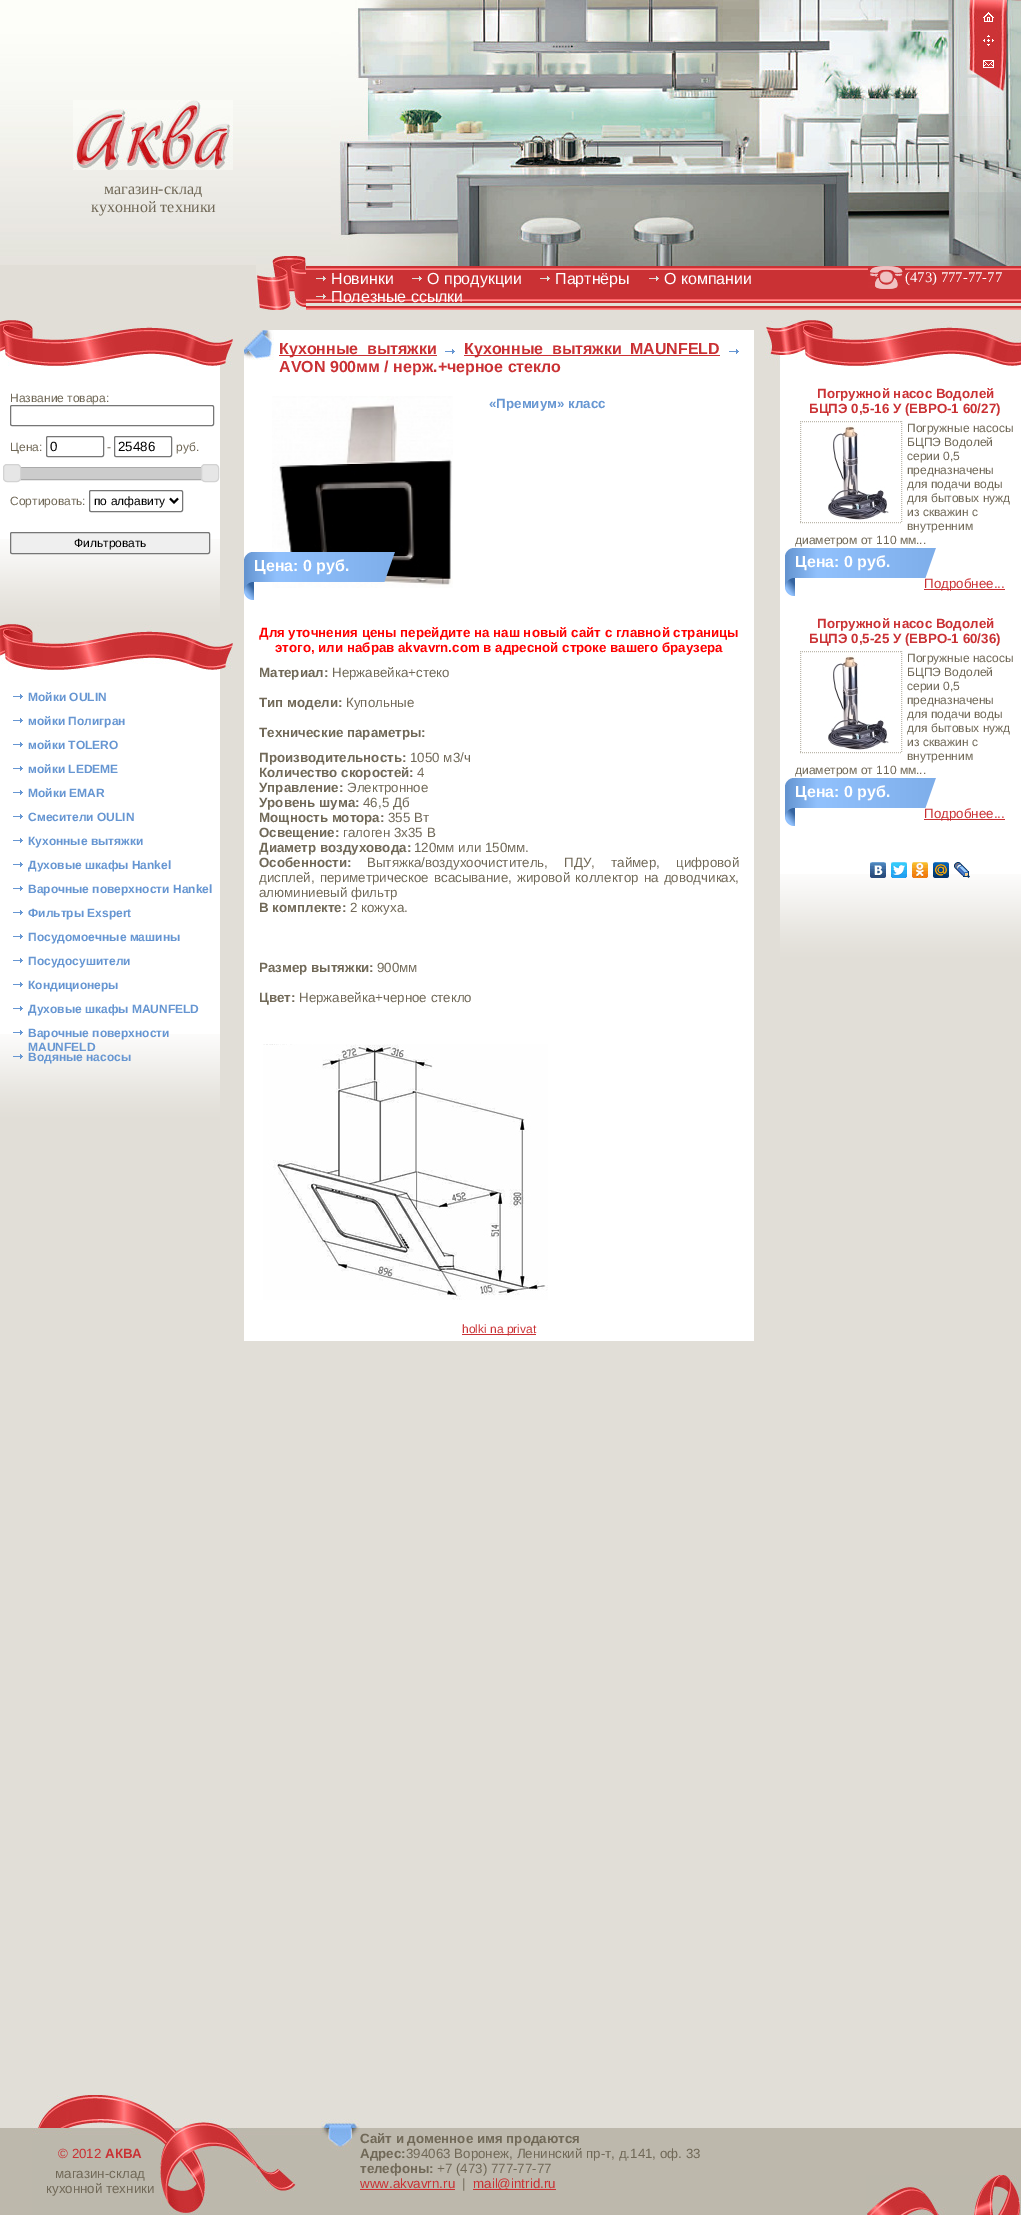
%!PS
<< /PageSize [1021 2215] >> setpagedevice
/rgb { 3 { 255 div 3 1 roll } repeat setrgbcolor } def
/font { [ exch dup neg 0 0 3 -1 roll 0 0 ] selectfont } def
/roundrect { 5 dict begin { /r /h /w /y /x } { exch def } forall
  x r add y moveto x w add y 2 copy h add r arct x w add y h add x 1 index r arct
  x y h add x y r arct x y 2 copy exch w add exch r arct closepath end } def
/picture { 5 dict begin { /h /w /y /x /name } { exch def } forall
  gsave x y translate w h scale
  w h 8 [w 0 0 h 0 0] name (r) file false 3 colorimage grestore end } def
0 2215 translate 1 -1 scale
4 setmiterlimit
225 222 215 rgb
0 0 1021 2215 rectfill
(img/1.rgb) 0 0 331 265 picture
(img/2.rgb) 256 256 50 54 picture
(img/3.rgb) 73 100 160 70 picture
(img/4.rgb) 331 0 690 266 picture
(img/5.rgb) 983 12 11 10 picture
(img/6.rgb) 983 35 11 11 picture
(img/7.rgb) 983 60 11 8 picture
(img/8.rgb) 306 266 715 44 picture
(img/9.rgb) 316 276 10 5 picture
(img/9.rgb) 412 276 10 5 picture
(img/9.rgb) 540 276 10 5 picture
(img/9.rgb) 649 276 10 5 picture
(img/9.rgb) 316 294 10 5 picture
(img/10.rgb) 868 266 37 23 picture
(img/11.rgb) 0 320 233 46 picture
255 255 255 rgb
0 366 220 173 rectfill
(img/12.rgb) 0 539 220 85 picture
118 118 118 rgb
10.5 405.5 203 20 1.5 roundrect stroke
46.5 436.5 57 20 1.5 roundrect stroke
114.5 436.5 57 20 1.5 roundrect stroke
170 170 170 rgb
10.5 467.5 199 12 rectstroke
204 204 204 rgb
20 468 182 11 rectfill
230 230 230 rgb
3.5 464.5 17 17 3.5 roundrect gsave fill grestore
211 211 211 rgb
stroke
230 230 230 rgb
201.5 464.5 17 17 3.5 roundrect gsave fill grestore
211 211 211 rgb
stroke
118 118 118 rgb
89.5 490.5 93 21 1.5 roundrect stroke
0 0 0 rgb
2 setlinewidth
170 498.5 moveto 174 502.5 lineto 178 498.5 lineto stroke
239 239 239 rgb
10.5 532.5 199 21 1.5 roundrect gsave fill grestore
118 118 118 rgb
1 setlinewidth
stroke
(img/11.rgb) 0 624 233 46 picture
255 255 255 rgb
0 670 220 364 rectfill
(img/12.rgb) 0 1034 220 85 picture
(img/13.rgb) 13 694 10 5 picture
(img/13.rgb) 13 718 10 5 picture
(img/13.rgb) 13 742 10 5 picture
(img/13.rgb) 13 766 10 5 picture
(img/13.rgb) 13 790 10 5 picture
(img/13.rgb) 13 814 10 5 picture
(img/13.rgb) 13 838 10 5 picture
(img/13.rgb) 13 862 10 5 picture
(img/13.rgb) 13 886 10 5 picture
(img/13.rgb) 13 910 10 5 picture
(img/13.rgb) 13 934 10 5 picture
(img/13.rgb) 13 958 10 5 picture
(img/13.rgb) 13 982 10 5 picture
(img/13.rgb) 13 1006 10 5 picture
(img/14.rgb) 13 1030 10 5 picture
(img/15.rgb) 13 1054 10 5 picture
244 330 510 1011 rectfill
(img/16.rgb) 244 330 30 30 picture
202 49 52 rgb
279 355 158 1 rectfill
(img/13.rgb) 445 349 10 5 picture
464 355 256 1 rectfill
(img/13.rgb) 729 349 10 5 picture
(img/17.rgb) 272 396 181 192 picture
(img/18.rgb) 244 552 151 48 picture
(img/19.rgb) 263 1044 285 256 picture
462 1334 74 1 rectfill
(img/20.rgb) 765 320 256 46 picture
255 255 255 rgb
780 366 241 508 rectfill
(img/21.rgb) 780 874 241 85 picture
189 184 172 rgb
[1 1] 0 setdash
800 421.5 moveto 902 421.5 lineto stroke
901.5 421 moveto 901.5 523 lineto stroke
800 522.5 moveto 902 522.5 lineto stroke
800.5 421 moveto 800.5 523 lineto stroke
(img/22.rgb) 828 425 61 95 picture
(img/23.rgb) 785 548 151 48 picture
202 49 52 rgb
924 589 81 1 rectfill
189 184 172 rgb
800 651.5 moveto 902 651.5 lineto stroke
901.5 651 moveto 901.5 753 lineto stroke
800 752.5 moveto 902 752.5 lineto stroke
800.5 651 moveto 800.5 753 lineto stroke
(img/22.rgb) 828 655 61 95 picture
(img/23.rgb) 785 778 151 48 picture
202 49 52 rgb
924 819 81 1 rectfill
(img/24.rgb) 870 862 16 16 picture
(img/25.rgb) 891 862 16 16 picture
(img/26.rgb) 912 862 16 16 picture
(img/27.rgb) 933 862 16 16 picture
(img/28.rgb) 954 862 16 16 picture
189 184 172 rgb
0 2128 1021 87 rectfill
(img/29.rgb) 32 2095 328 120 picture
202 49 52 rgb
360 2189 95 1 rectfill
473 2189 83 1 rectfill
(img/30.rgb) 866 2175 155 40 picture
/LiberationSerif-Regular 16 font
112 104 87 rgb
104 194 moveto (магазин-склад) show
91 212 moveto (кухонной техники) show
/LiberationSans-Regular 16 font
255 255 255 rgb
[
  [(Новинки) 331 284]
  [(О продукции) 427 284]
  [(Партнёры) 555 284]
  [(О компании) 664 284]
  [(Полезные ссылки) 331 302]
] { aload pop moveto show } forall
/LiberationSerif-Regular 14.75 font
905 282 moveto (\(473\) 777-77-77) show
/LiberationSans-Regular 12 font
112 104 87 rgb
10 402 moveto (Название товара:) show
10 451 moveto (Цена:) show
/LiberationSans-Regular 13.35 font
0 0 0 rgb
50 451 moveto (0) show
/LiberationSans-Regular 12 font
112 104 87 rgb
107 451 moveto (-) show
/LiberationSans-Regular 13.35 font
0 0 0 rgb
118 451 moveto (25486) show
/LiberationSans-Regular 12 font
112 104 87 rgb
176 451 moveto (руб.) show
10 505 moveto (Сортировать:) show
0 0 0 rgb
94 505 moveto (по алфавиту) show
74 547 moveto (Фильтровать) show
/LiberationSans-Bold 12 font
102 150 210 rgb
[
  [(Мойки OULIN) 28 701]
  [(мойки Полигран) 28 725]
  [(мойки TOLERO) 28 749]
  [(мойки LEDEME) 28 773]
  [(Мойки EMAR) 28 797]
  [(Смесители OULIN) 28 821]
  [(Кухонные вытяжки) 28 845]
  [(Духовые шкафы Hankel) 28 869]
  [(Варочные поверхности Hankel) 28 893]
  [(Фильтры Exspert) 28 917]
  [(Посудомоечные машины) 28 941]
  [(Посудосушители) 28 965]
  [(Кондиционеры) 28 989]
  [(Духовые шкафы MAUNFELD) 28 1013]
  [(Варочные поверхности) 28 1037]
  [(MAUNFELD) 28 1051]
  [(Водяные насосы) 28 1061]
] { aload pop moveto show } forall
/LiberationSans-Bold 16 font
202 49 52 rgb
279 354 moveto 4 0 32 (Кухонные вытяжки) widthshow
464 354 moveto 4 0 32 (Кухонные вытяжки MAUNFELD) widthshow
279 372 moveto (AVON 900мм / нерж.+черное стекло) show
/LiberationSans-Bold 13.35 font
102 150 210 rgb
489 408 moveto («Премиум» класс) show
/LiberationSans-Bold 16 font
255 255 255 rgb
254 571 moveto (Цена: 0 руб.) show
/LiberationSans-Bold 13.35 font
255 0 0 rgb
259 637 moveto (Для уточнения цены перейдите на наш новый сайт с главной страницы) show
275 652 moveto (этого, или набрав akvavrn.com в адресной строке вашего браузера) show
112 104 87 rgb
259 677 moveto (Материал:) show
/LiberationSans-Regular 13.35 font
332 677 moveto (Нержавейка+стеко) show
/LiberationSans-Bold 13.35 font
259 707 moveto (Тип модели:) show
/LiberationSans-Regular 13.35 font
346 707 moveto (Купольные) show
/LiberationSans-Bold 13.35 font
259 737 moveto (Технические параметры:) show
259 762 moveto (Производительность:) show
/LiberationSans-Regular 13.35 font
410 762 moveto (1050 м3/ч) show
/LiberationSans-Bold 13.35 font
259 777 moveto (Количество скоростей:) show
/LiberationSans-Regular 13.35 font
417 777 moveto (4) show
/LiberationSans-Bold 13.35 font
259 792 moveto (Управление:) show
/LiberationSans-Regular 13.35 font
347 792 moveto (Электронное) show
/LiberationSans-Bold 13.35 font
259 807 moveto (Уровень шума:) show
/LiberationSans-Regular 13.35 font
363 807 moveto (46,5 Дб) show
/LiberationSans-Bold 13.35 font
259 822 moveto (Мощность мотора:) show
/LiberationSans-Regular 13.35 font
388 822 moveto (355 Вт) show
/LiberationSans-Bold 13.35 font
259 837 moveto (Освещение:) show
/LiberationSans-Regular 13.35 font
343 837 moveto (галоген 3х35 В) show
/LiberationSans-Bold 13.35 font
259 852 moveto (Диаметр воздуховода:) show
/LiberationSans-Regular 13.35 font
414 852 moveto (120мм или 150мм.) show
/LiberationSans-Bold 13.35 font
259 867 moveto (Особенности:) show
/LiberationSans-Regular 13.35 font
367 867 moveto 12.5 0 32 (Вытяжка/воздухоочиститель, ПДУ, таймер, цифровой) widthshow
259 882 moveto 1.5 0 32 (дисплей, периметрическое всасывание, жировой коллектор на доводчиках,) widthshow
259 897 moveto (алюминиевый фильтр) show
/LiberationSans-Bold 13.35 font
259 912 moveto (В комплекте:) show
/LiberationSans-Regular 13.35 font
350 912 moveto (2 кожуха.) show
/LiberationSans-Bold 13.35 font
259 972 moveto (Размер вытяжки:) show
/LiberationSans-Regular 13.35 font
377 972 moveto (900мм) show
/LiberationSans-Bold 13.35 font
259 1002 moveto (Цвет:) show
/LiberationSans-Regular 13.35 font
299 1002 moveto (Нержавейка+черное стекло) show
/LiberationSans-Regular 12 font
202 49 52 rgb
462 1333 moveto (holki na privat) show
/LiberationSans-Bold 13.35 font
817 398 moveto (Погружной насос Водолей) show
809 413 moveto (БЦПЭ 0,5-16 У \(ЕВРО-1 60/27\)) show
/LiberationSans-Regular 12 font
112 104 87 rgb
[
  [(Погружные насосы) 907 432]
  [(БЦПЭ Водолей) 907 446]
  [(серии 0,5) 907 460]
  [(предназначены) 907 474]
  [(для подачи воды) 907 488]
  [(для бытовых нужд) 907 502]
  [(из скважин с) 907 516]
  [(внутренним) 907 530]
  [(диаметром от 110 мм...) 795 544]
] { aload pop moveto show } forall
/LiberationSans-Bold 16 font
255 255 255 rgb
795 567 moveto (Цена: 0 руб.) show
/LiberationSans-Regular 13.35 font
202 49 52 rgb
924 588 moveto (Подробнее...) show
/LiberationSans-Bold 13.35 font
817 628 moveto (Погружной насос Водолей) show
809 643 moveto (БЦПЭ 0,5-25 У \(ЕВРО-1 60/36\)) show
/LiberationSans-Regular 12 font
112 104 87 rgb
[
  [(Погружные насосы) 907 662]
  [(БЦПЭ Водолей) 907 676]
  [(серии 0,5) 907 690]
  [(предназначены) 907 704]
  [(для подачи воды) 907 718]
  [(для бытовых нужд) 907 732]
  [(из скважин с) 907 746]
  [(внутренним) 907 760]
  [(диаметром от 110 мм...) 795 774]
] { aload pop moveto show } forall
/LiberationSans-Bold 16 font
255 255 255 rgb
795 797 moveto (Цена: 0 руб.) show
/LiberationSans-Regular 13.35 font
202 49 52 rgb
924 818 moveto (Подробнее...) show
58 2158 moveto (© 2012) show
/LiberationSans-Bold 13.35 font
105 2158 moveto (АКВА) show
/LiberationSans-Regular 13.35 font
112 104 87 rgb
55 2178 moveto (магазин-склад) show
46 2193 moveto (кухонной техники) show
/LiberationSans-Bold 13.35 font
360 2143 moveto (Сайт и доменное имя продаются) show
360 2158 moveto (Адрес:) show
/LiberationSans-Regular 13.35 font
406 2158 moveto (394063 Воронеж, Ленинский пр-т, д.141, оф. 33) show
/LiberationSans-Bold 13.35 font
360 2173 moveto (телефоны:) show
/LiberationSans-Regular 13.35 font
437 2173 moveto (+7 \(473\) 777-77-77) show
202 49 52 rgb
360 2188 moveto (www.akvavrn.ru) show
112 104 87 rgb
462 2188 moveto (|) show
202 49 52 rgb
473 2188 moveto (mail@intrid.ru) show
showpage
